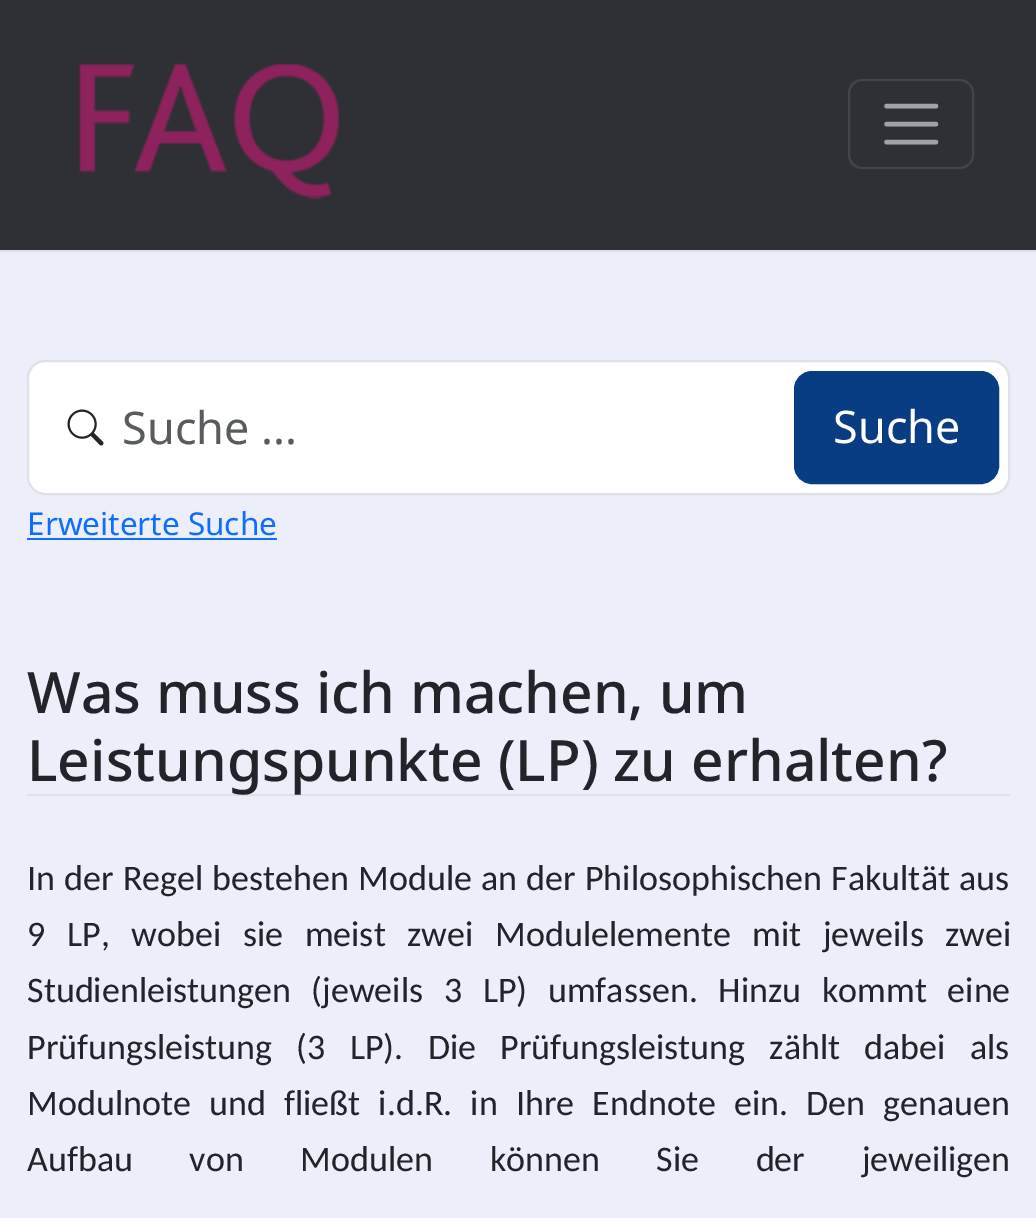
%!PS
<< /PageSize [1036 1218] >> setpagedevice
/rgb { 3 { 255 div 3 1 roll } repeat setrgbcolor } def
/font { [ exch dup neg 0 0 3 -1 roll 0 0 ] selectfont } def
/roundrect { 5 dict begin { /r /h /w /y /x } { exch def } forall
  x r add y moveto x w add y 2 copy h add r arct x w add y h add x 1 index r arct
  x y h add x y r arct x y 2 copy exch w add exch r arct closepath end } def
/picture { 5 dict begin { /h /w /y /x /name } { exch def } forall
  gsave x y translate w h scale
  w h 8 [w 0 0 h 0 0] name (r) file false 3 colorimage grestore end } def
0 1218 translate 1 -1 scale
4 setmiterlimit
236 239 249 rgb
0 0 1036 1218 rectfill
47 48 53 rgb
0 0 1036 250 rectfill
222 226 230 rgb
0 250 1036 2 rectfill
(img/1.rgb) 79 63 261 137 picture
68 69 73 rgb
2 setlinewidth
849 80 124 88 13 roundrect stroke
161 162 164 rgb
4.5 setlinewidth
1 setlinecap
886.5 106 moveto 936 106 lineto 886.5 124 moveto 936 124 lineto 886.5 142 moveto 936 142 lineto stroke
255 255 255 rgb
28 361 981 133 17 roundrect gsave fill grestore
222 226 230 rgb
2 setlinewidth
0 setlinecap
stroke
(img/2.rgb) 67 409 37 37 picture
8 60 131 rgb
795 372 203 111 17 roundrect gsave fill grestore
stroke
13 110 253 rgb
27 538 250 2 rectfill
222 226 230 rgb
27 794 983 2 rectfill
/NotoSans-Regular 45 font
89 92 95 rgb
122 444 moveto (Suche ...) show
255 255 255 rgb
833 443 moveto (Suche) show
/NotoSans-Regular 31.5 font
13 110 253 rgb
27 535 moveto (Erweiterte Suche) show
/NotoSans-Medium 57 font
33 37 41 rgb
27 713 moveto (Was muss ich machen, um) show
27 781 moveto (Leistungspunkte \(LP\) zu erhalten?) show
/Carlito-Regular 36 font
27 890 moveto 1 0 32 (In der Regel bestehen Module an der Philosophischen Fakultät aus) widthshow
27 946 moveto 13.5 0 32 (9 LP, wobei sie meist zwei Modulelemente mit jeweils zwei) widthshow
27 1002 moveto 12.5 0 32 (Studienleistungen \(jeweils 3 LP\) umfassen. Hinzu kommt eine) widthshow
27 1059 moveto 16 0 32 (Prüfungsleistung \(3 LP\). Die Prüfungsleistung zählt dabei als) widthshow
27 1115 moveto 10 0 32 (Modulnote und fließt i.d.R. in Ihre Endnote ein. Den genauen) widthshow
27 1171 moveto 48.5 0 32 (Aufbau von Modulen können Sie der jeweiligen) widthshow
showpage
